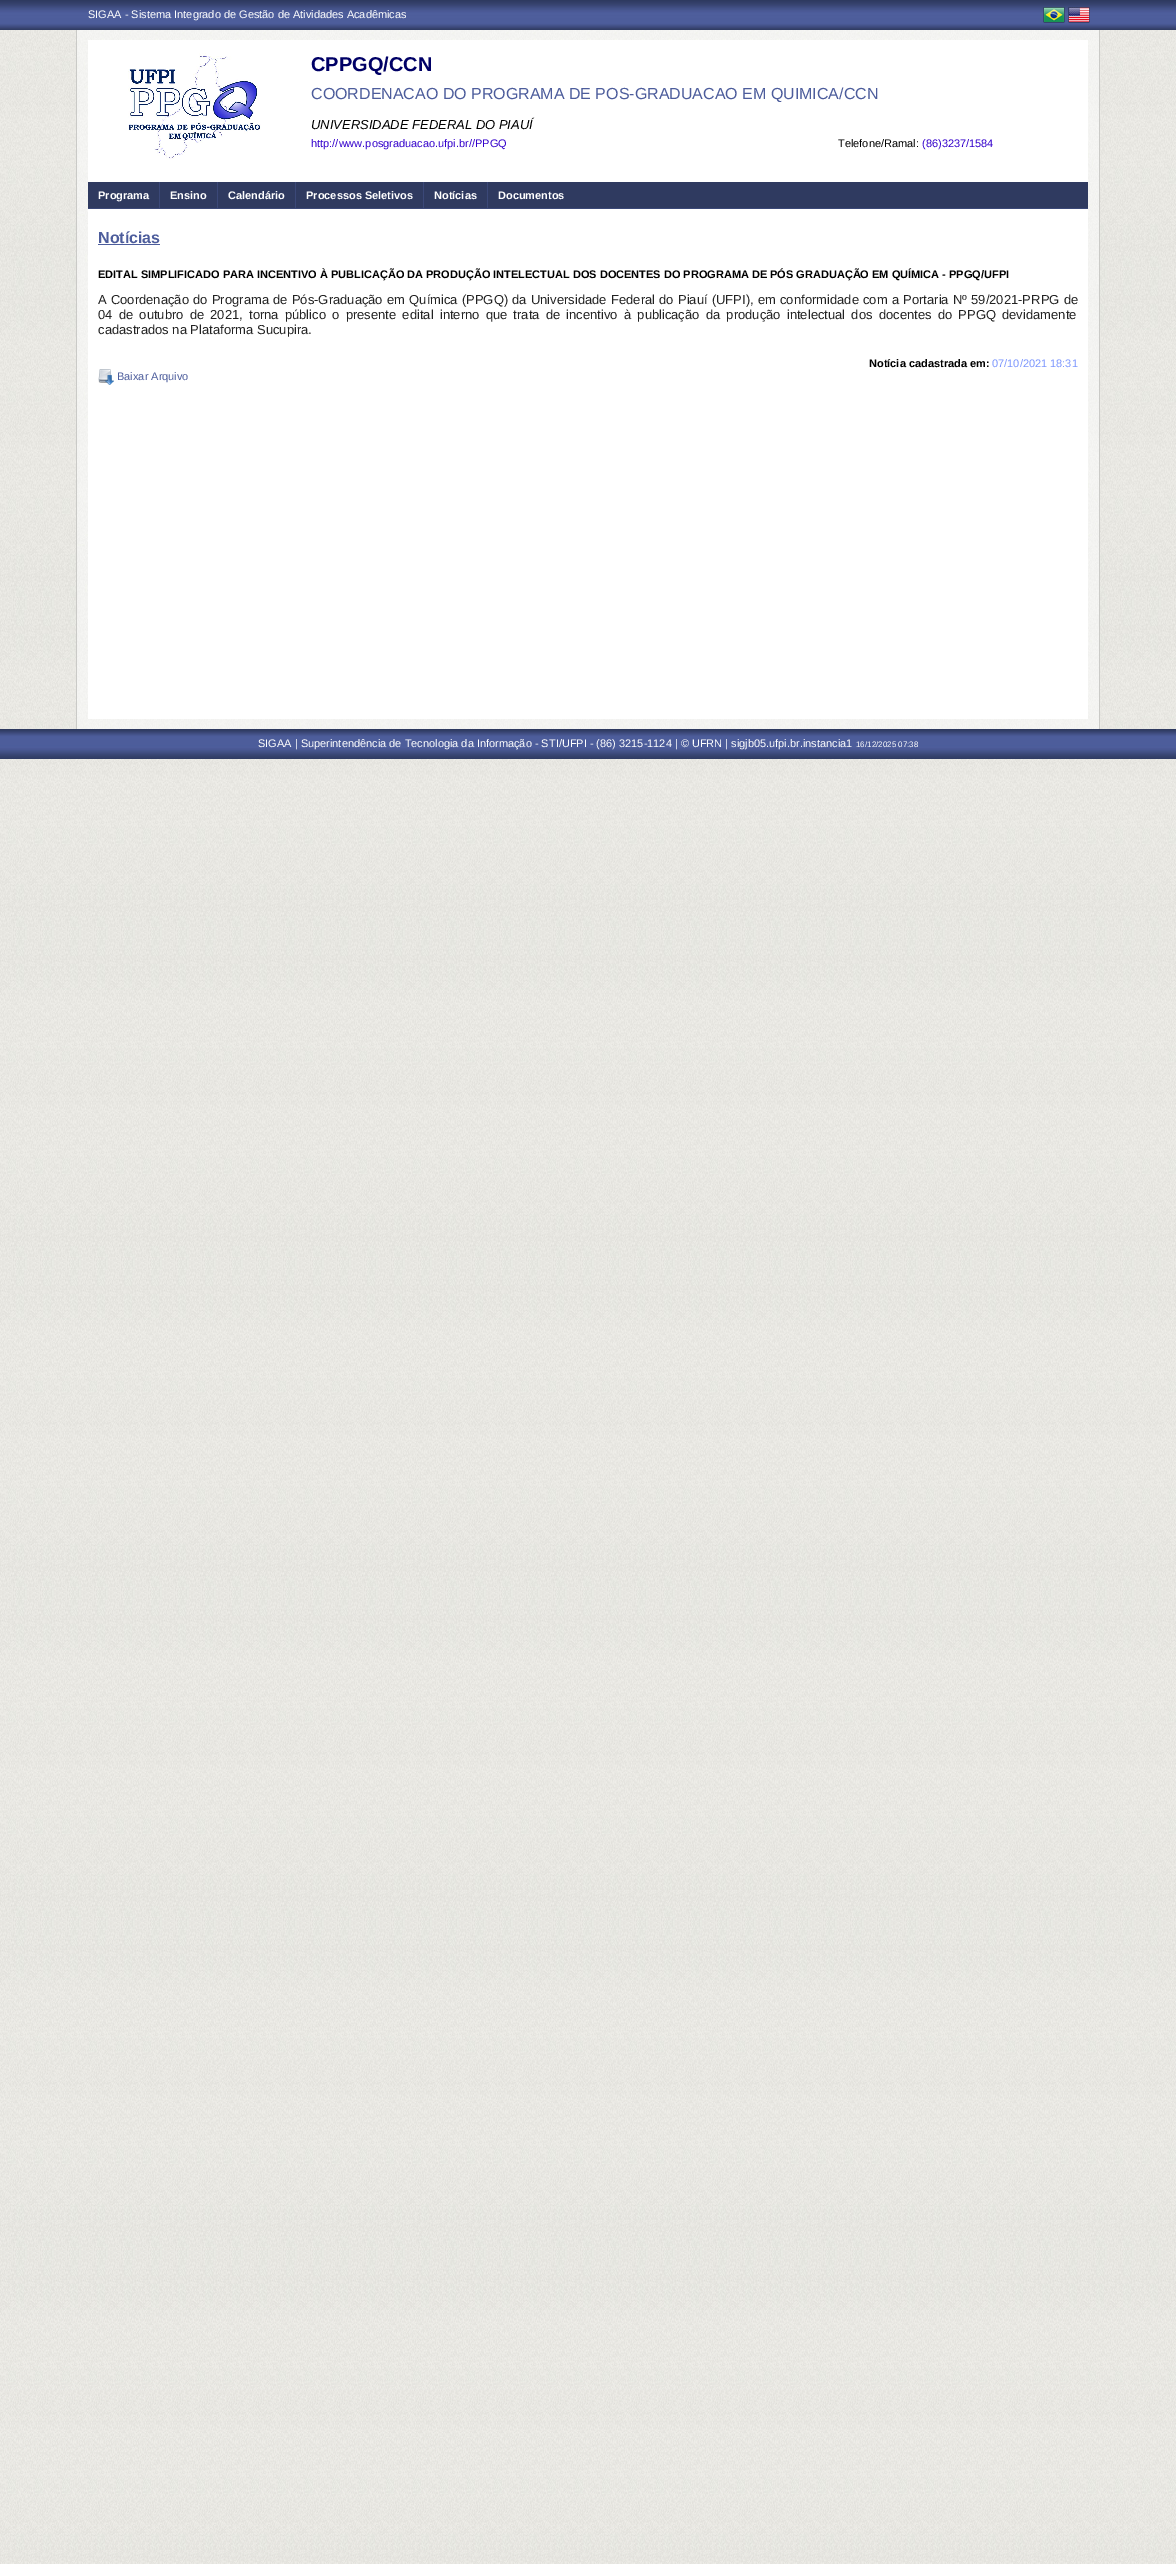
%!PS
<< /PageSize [1176 2564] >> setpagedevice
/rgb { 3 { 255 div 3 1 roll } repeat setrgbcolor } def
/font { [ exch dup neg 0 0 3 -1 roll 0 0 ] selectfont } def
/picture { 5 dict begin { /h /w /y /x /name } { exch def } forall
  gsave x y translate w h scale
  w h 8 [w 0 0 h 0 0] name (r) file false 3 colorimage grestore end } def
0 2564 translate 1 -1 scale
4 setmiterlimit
255 255 255 rgb
0 0 1176 2564 rectfill
(img/1.rgb) 0 30 1176 2534 picture
(img/2.rgb) 0 0 1176 30 picture
(img/3.rgb) 0 729 1176 30 picture
(img/4.rgb) 1043 7 22 16 picture
(img/5.rgb) 1068 7 22 16 picture
(img/6.rgb) 77 30 1022 699 picture
[
  [1099 30 1 699 202 202 199]
  [76 30 1 699 202 202 199]
  [88 40 1000 679 255 255 255]
] { aload pop rgb rectfill } forall
(img/7.rgb) 128 53 133 107 picture
[
  [88 182 1000 26 47 58 96]
  [88 208 1000 1 59 72 120]
  [159 182 1 27 59 72 120]
  [217 182 1 27 59 72 120]
  [295 182 1 27 59 72 120]
  [423 182 1 27 59 72 120]
  [487 182 1 27 59 72 120]
  [98 244 62 1 77 93 156]
] { aload pop rgb rectfill } forall
(img/8.rgb) 98 369 16 16 picture
/LiberationSans-Regular 11 font
255 255 255 rgb
88 18 moveto (SIGAA - Sistema Integrado de Gestão de Atividades Acadêmicas) show
/LiberationSans-Bold 20 font
0 0 102 rgb
311 71 moveto (CPPGQ/CCN) show
/LiberationSans-Regular 16 font
77 93 156 rgb
311 99 moveto (COORDENACAO DO PROGRAMA DE POS-GRADUACAO EM QUIMICA/CCN) show
/LiberationSans-Italic 13 font
0 0 0 rgb
311 129 moveto (UNIVERSIDADE FEDERAL DO PIAUÍ) show
/LiberationSans-Regular 11 font
51 0 204 rgb
311 147 moveto (http://www.posgraduacao.ufpi.br//PPGQ) show
0 0 0 rgb
838 147 moveto (Telefone/Ramal:) show
51 0 204 rgb
922 147 moveto (\(86\)3237/1584) show
/LiberationSans-Bold 11 font
255 255 255 rgb
[
  [(Programa) 98 199]
  [(Ensino) 170 199]
  [(Calendário) 228 199]
  [(Processos Seletivos) 306 199]
  [(Notícias) 434 199]
  [(Documentos) 498 199]
] { aload pop moveto show } forall
/LiberationSans-Bold 16 font
77 93 156 rgb
98 243 moveto (Notícias) show
/LiberationSans-Bold 11 font
0 0 0 rgb
98 278 moveto (EDITAL SIMPLIFICADO PARA INCENTIVO À PUBLICAÇÃO DA PRODUÇÃO INTELECTUAL DOS DOCENTES DO PROGRAMA DE PÓS GRADUAÇÃO EM QUÍMICA - PPGQ/UFPI) show
/LiberationSans-Regular 13 font
34 34 34 rgb
98 304 moveto 0.6 0 32 (A Coordenação do Programa de Pós-Graduação em Química \(PPGQ\) da Universidade Federal do Piauí \(UFPI\), em conformidade com a Portaria Nº 59/2021-PRPG de) widthshow
98 319 moveto 2.6 0 32 (04 de outubro de 2021, torna público o presente edital interno que trata de incentivo à publicação da produção intelectual dos docentes do PPGQ devidamente) widthshow
98 334 moveto (cadastrados na Plataforma Sucupira.) show
/LiberationSans-Bold 11 font
0 0 0 rgb
869 367 moveto (Notícia cadastrada em:) show
/LiberationSans-Regular 11 font
125 151 254 rgb
992 367 moveto (07/10/2021 18:31) show
77 93 156 rgb
117 380 moveto (Baixar Arquivo) show
255 255 255 rgb
258 747 moveto (SIGAA | Superintendência de Tecnologia da Informação - STI/UFPI - \(86\) 3215-1124 | © UFRN | sigjb05.ufpi.br.instancia1) show
/LiberationSans-Regular 8 font
856 747 moveto (16/12/2025 07:38) show
showpage
